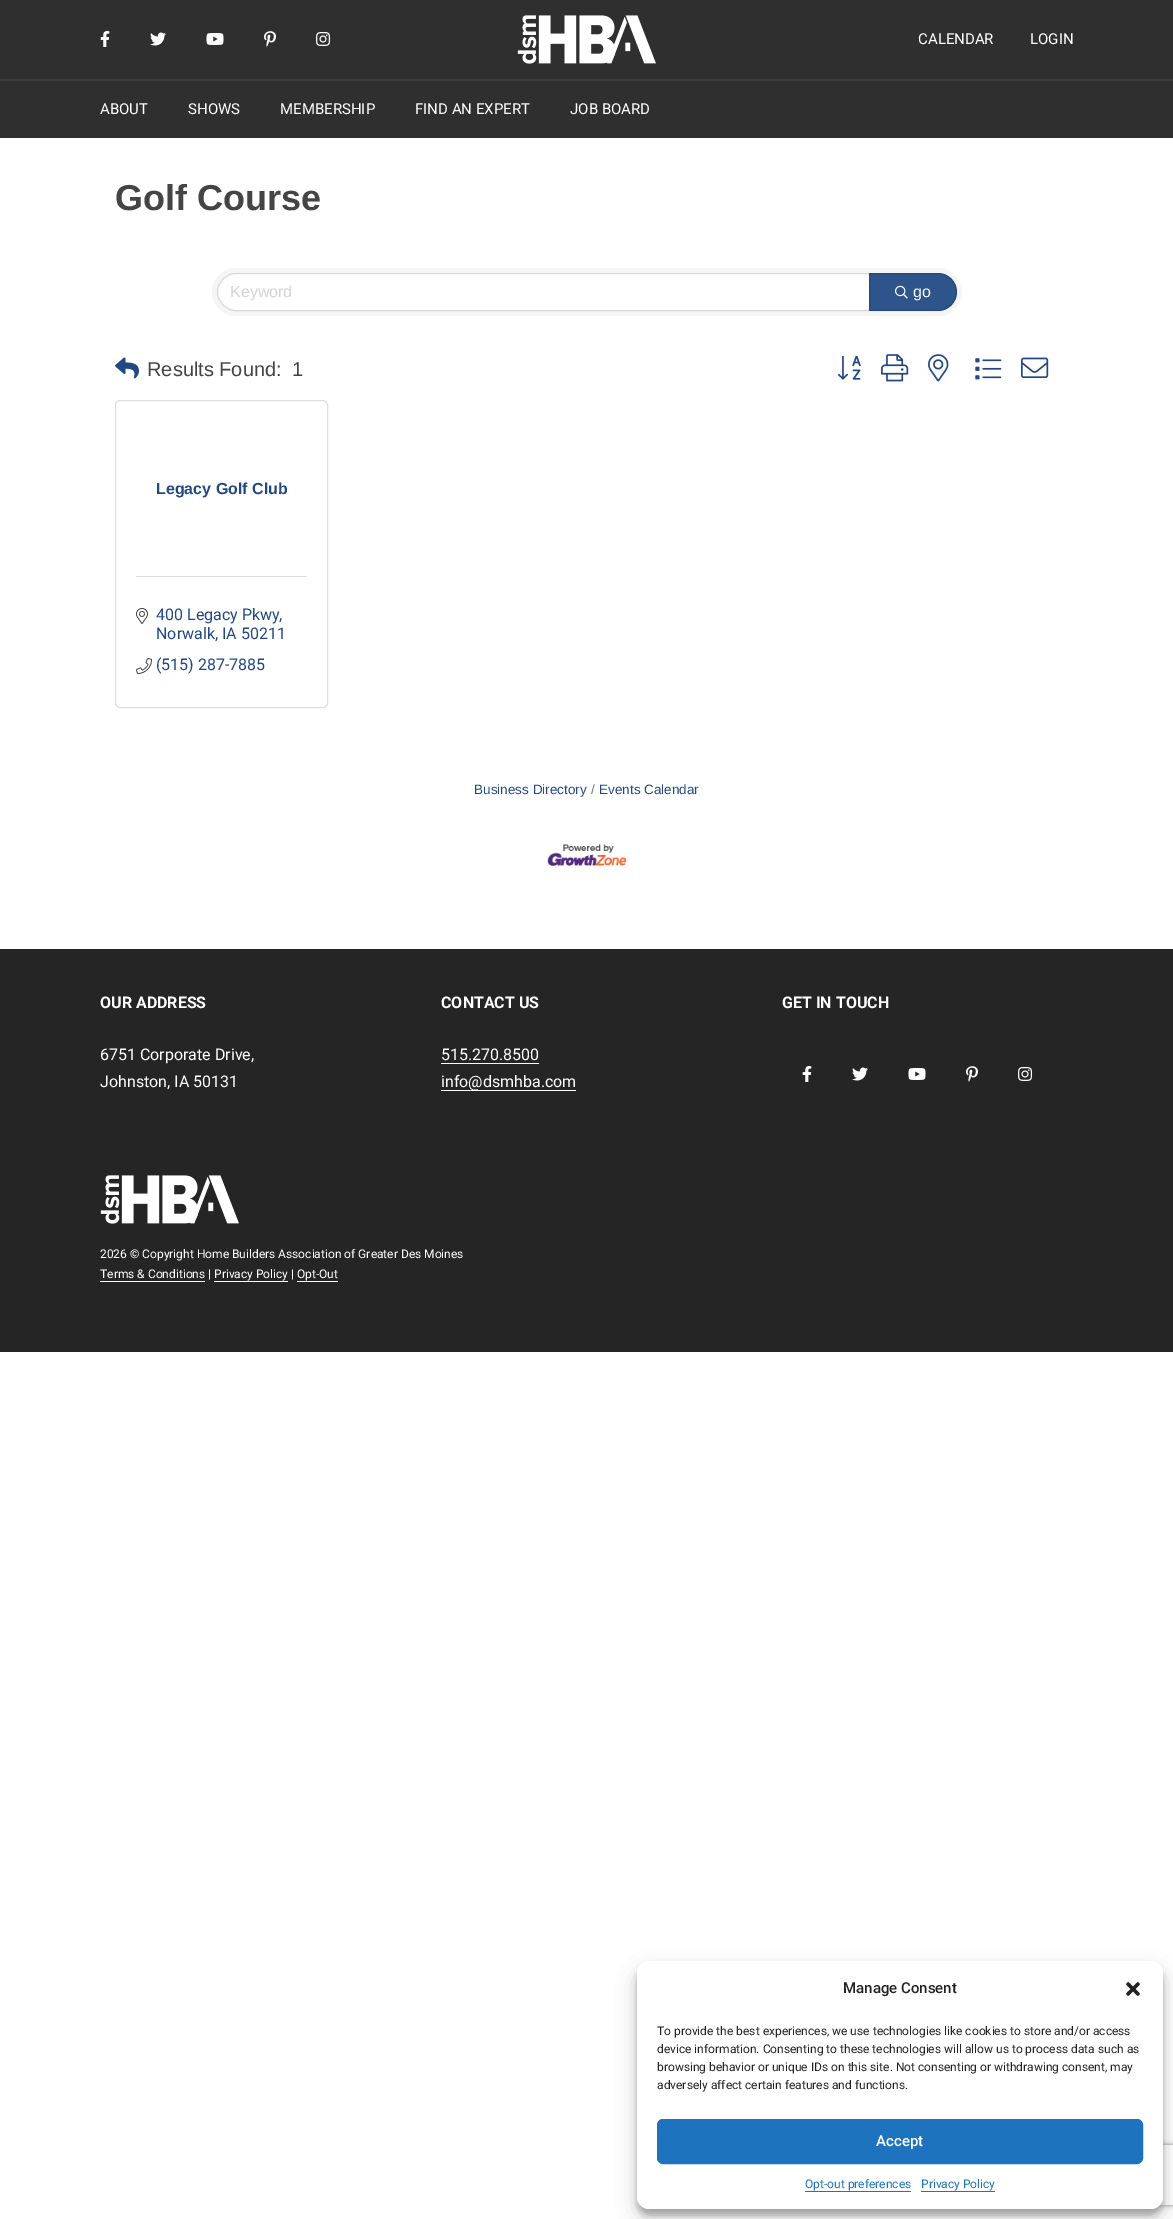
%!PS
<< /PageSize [1173 2219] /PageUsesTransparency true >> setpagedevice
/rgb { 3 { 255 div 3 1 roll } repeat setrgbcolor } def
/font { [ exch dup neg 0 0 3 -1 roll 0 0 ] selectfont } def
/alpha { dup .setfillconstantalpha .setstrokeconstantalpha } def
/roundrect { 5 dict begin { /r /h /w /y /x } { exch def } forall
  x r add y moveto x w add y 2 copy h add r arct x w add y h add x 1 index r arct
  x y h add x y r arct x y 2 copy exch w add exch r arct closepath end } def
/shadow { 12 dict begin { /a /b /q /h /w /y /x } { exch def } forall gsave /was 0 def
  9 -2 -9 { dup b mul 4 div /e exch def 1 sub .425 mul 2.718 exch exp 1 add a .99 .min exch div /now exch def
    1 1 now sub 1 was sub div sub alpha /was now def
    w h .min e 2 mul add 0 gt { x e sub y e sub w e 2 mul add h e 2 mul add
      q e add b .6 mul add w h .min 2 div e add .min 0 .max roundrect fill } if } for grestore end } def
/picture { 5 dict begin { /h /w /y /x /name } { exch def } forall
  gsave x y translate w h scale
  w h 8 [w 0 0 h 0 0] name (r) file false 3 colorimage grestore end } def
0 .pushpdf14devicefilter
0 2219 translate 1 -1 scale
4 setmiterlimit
255 255 255 rgb
0 0 1173 2219 rectfill
47 47 47 rgb
0 0 1173 138 rectfill
(img/1.rgb) 100 31 10 16 picture
(img/2.rgb) 150 32 16 14 picture
(img/3.rgb) 206 33 18 12 picture
(img/4.rgb) 264 31 12 16 picture
(img/5.rgb) 316 32 15 14 picture
(img/6.rgb) 517 15 139 49 picture
61 61 61 rgb
0 79 1173 2 rectfill
245 245 245 rgb
212 268 750 48 24 roundrect fill
255 255 255 rgb
236 274 moveto 867 274 lineto 868 274 869 275 869 276 curveto 869 308 lineto 869 309 868 310 867 310 curveto 236 310 lineto 226 310 218 302 218 292 curveto 218 282 226 274 236 274 curveto closepath fill
0.12 alpha
0 0 0 rgb
236 273.5 moveto 867 273.5 lineto 868.5 273.5 869.5 274.5 869.5 276 curveto 869.5 308 lineto 869.5 309.5 868.5 310.5 867 310.5 curveto 236 310.5 lineto 226 310.5 217.5 302 217.5 292 curveto 217.5 282 226 273.5 236 273.5 curveto closepath stroke
1 alpha
45 84 139 rgb
869 273 moveto 938 273 lineto 948.5 273 957 281.5 957 292 curveto 957 302.5 948.5 311 938 311 curveto 869 311 lineto closepath fill
0.12 alpha
0 0 0 rgb
869.5 273.5 moveto 938 273.5 lineto 948 273.5 956.5 282 956.5 292 curveto 956.5 302 948 310.5 938 310.5 curveto 869.5 310.5 lineto closepath stroke
1 alpha
(img/7.rgb) 895 285 13 14 picture
(img/8.rgb) 115 357 24 22 picture
(img/9.rgb) 837 355 24 25 picture
(img/10.rgb) 881 354 28 28 picture
(img/11.rgb) 928 354 21 28 picture
(img/12.rgb) 975 358 27 22 picture
(img/13.rgb) 1021 357 28 21 picture
223 223 223 rgb
115.5 400.5 212 307 4.5 roundrect stroke
136 576 171 1 rectfill
(img/14.rgb) 136 608 12 16 picture
(img/15.rgb) 136 658 16 16 picture
(img/16.rgb) 547 844 80 22 picture
[
  [0 949 1173 403 37 37 37]
  [441 1063 98 1 255 255 255]
  [441 1090 135 1 255 255 255]
] { aload pop rgb rectfill } forall
(img/17.rgb) 802 1066 10 16 picture
(img/18.rgb) 852 1067 16 14 picture
(img/19.rgb) 908 1068 18 12 picture
(img/20.rgb) 966 1066 12 16 picture
(img/21.rgb) 1018 1067 15 14 picture
(img/22.rgb) 100 1175 139 49 picture
[
  [100 1281 105 1 255 255 255]
  [214 1281 74 1 255 255 255]
  [297 1281 41 1 255 255 255]
] { aload pop rgb rectfill } forall
0 0 0 rgb
637 1967 526 248 12 3 0.23 shadow
637 1971 526 248 12 10 0.19 shadow
gsave
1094 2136 moveto 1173 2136 lineto 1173 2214 lineto 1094 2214 lineto closepath 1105 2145 moveto 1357 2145 lineto 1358 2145 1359 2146 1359 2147 curveto 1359 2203 lineto 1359 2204 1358 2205 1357 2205 curveto 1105 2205 lineto 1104 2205 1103 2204 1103 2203 curveto 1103 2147 lineto 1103 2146 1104 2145 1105 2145 curveto closepath eoclip newpath
128 128 128 rgb
1103 2145 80 60 2 2.5 1 shadow
grestore
255 255 255 rgb
637 1961 526 248 12 roundrect fill
(img/23.rgb) 1126 1982 14 14 picture
30 115 190 rgb
657.5 2119.5 485 44 5.5 roundrect gsave fill grestore
stroke
805 2191 106 1 rectfill
921 2191 74 1 rectfill
/Roboto-Regular 15 font
255 255 255 rgb
[
  [(CALENDAR) 918 44]
  [(LOGIN) 1030 44]
  [(ABOUT) 100 114]
  [(SHOWS) 188 114]
  [(MEMBERSHIP) 280 114]
  [(FIND AN EXPERT) 415 114]
  [(JOB BOARD) 570 114]
] { aload pop moveto show } forall
/LiberationSans-Bold 36 font
68 68 68 rgb
115 210 moveto (Golf Course) show
/LiberationSans-Regular 16 font
210 210 210 rgb
230 297 moveto (Keyword) show
255 255 255 rgb
913 297 moveto (go) show
/LiberationSans-Regular 20 font
68 68 68 rgb
147 376 moveto (Results Found:) show
292 376 moveto (1) show
/LiberationSans-Bold 16 font
34 72 132 rgb
156 494 moveto (Legacy Golf Club) show
/Roboto-Regular 16 font
[
  [(400 Legacy Pkwy,) 156 620]
  [(Norwalk, IA 50211) 156 639]
  [(\(515\) 287-7885) 156 670]
] { aload pop moveto show } forall
/LiberationSans-Regular 13.5 font
474 794 moveto (Business Directory) show
108 117 125 rgb
591 794 moveto (/) show
34 72 132 rgb
599 794 moveto (Events Calendar) show
/Roboto-Bold 16 font
255 255 255 rgb
100 1008 moveto (OUR ADDRESS) show
/Roboto-Regular 16 font
100 1060 moveto (6751 Corporate Drive,) show
100 1087 moveto (Johnston, IA 50131) show
/Roboto-Bold 16 font
441 1008 moveto (CONTACT US) show
/Roboto-Regular 16 font
441 1060 moveto (515.270.8500) show
441 1087 moveto (info@dsmhba.com) show
/Roboto-Bold 16 font
782 1008 moveto (GET IN TOUCH) show
/Roboto-Regular 12 font
100 1258 moveto (2026 © Copyright Home Builders Association of Greater Des Moines) show
100 1278 moveto (Terms & Conditions | Privacy Policy | Opt-Out) show
/Roboto-Medium 15 font
34 34 34 rgb
843 1993 moveto (Manage Consent) show
/Roboto-Regular 12 font
[
  [(To provide the best experiences, we use technologies like cookies to store and/or access) 657 2035]
  [(device information. Consenting to these technologies will allow us to process data such as) 657 2053]
  [(browsing behavior or unique IDs on this site. Not consenting or withdrawing consent, may) 657 2071]
  [(adversely affect certain features and functions.) 657 2089]
] { aload pop moveto show } forall
/Roboto-Medium 15 font
255 255 255 rgb
876 2146 moveto (Accept) show
/Roboto-Regular 12 font
30 115 190 rgb
805 2188 moveto (Opt-out preferences) show
921 2188 moveto (Privacy Policy) show
.poppdf14devicefilter showpage
